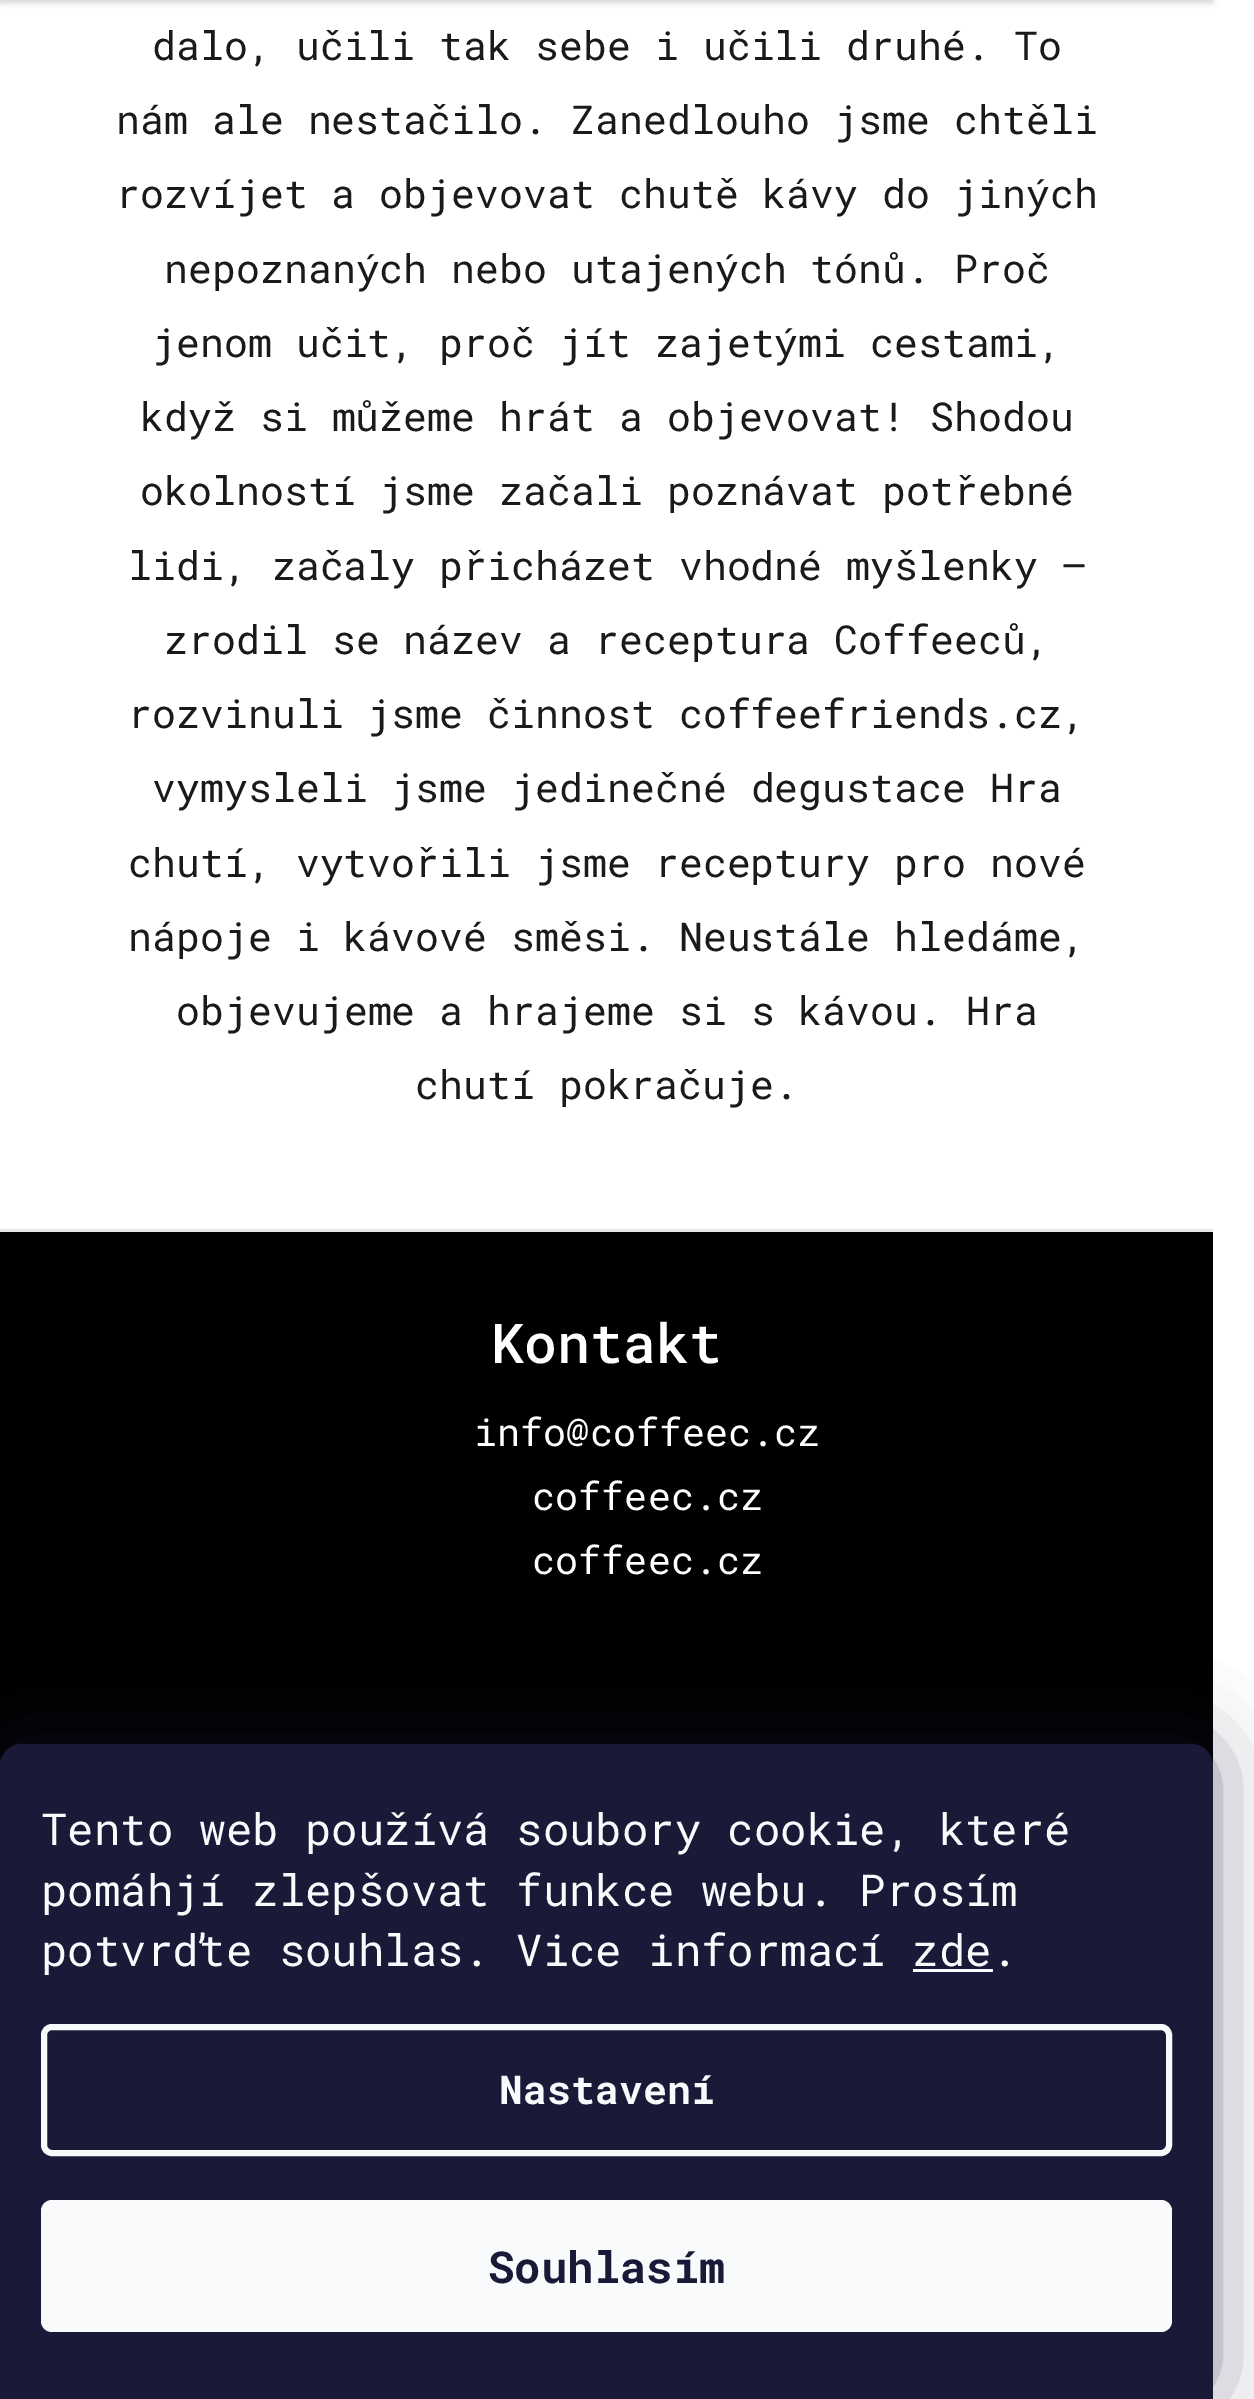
%!PS
<< /PageSize [1254 2399] /PageUsesTransparency true >> setpagedevice
/rgb { 3 { 255 div 3 1 roll } repeat setrgbcolor } def
/font { [ exch dup neg 0 0 3 -1 roll 0 0 ] selectfont } def
/alpha { dup .setfillconstantalpha .setstrokeconstantalpha } def
/roundrect { 5 dict begin { /r /h /w /y /x } { exch def } forall
  x r add y moveto x w add y 2 copy h add r arct x w add y h add x 1 index r arct
  x y h add x y r arct x y 2 copy exch w add exch r arct closepath end } def
/shadow { 12 dict begin { /a /b /q /h /w /y /x } { exch def } forall gsave /was 0 def
  9 -2 -9 { dup b mul 4 div /e exch def 1 sub .425 mul 2.718 exch exp 1 add a .99 .min exch div /now exch def
    1 1 now sub 1 was sub div sub alpha /was now def
    w h .min e 2 mul add 0 gt { x e sub y e sub w e 2 mul add h e 2 mul add
      q e add b .6 mul add w h .min 2 div e add .min 0 .max roundrect fill } if } for grestore end } def
0 .pushpdf14devicefilter
0 2399 translate 1 -1 scale
4 setmiterlimit
255 255 255 rgb
0 0 1254 2399 rectfill
0 0 0 rgb
0 -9 1213 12 0 3 0.16 shadow
0 1232 1213 534 rectfill
230 230 230 rgb
0 1229 1213 3 rectfill
27 25 57 rgb
0 1744 1213 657 22 41 0.5 shadow
26 25 55 rgb
22 1744 moveto 1191 1744 lineto 1203 1744 1213 1754 1213 1766 curveto 1213 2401 lineto 0 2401 lineto 0 1766 lineto 0 1754 10 1744 22 1744 curveto closepath fill
248 250 251 rgb
913 1969 80 3 rectfill
6 setlinewidth
44 2027 1125 126 8 roundrect stroke
41 2200 1131 132 11 roundrect fill
/RobotoMono-Regular 39.9 font
26 26 26 rgb
[
  [(dalo, učili tak sebe i učili druhé. To) 152 60]
  [(nám ale nestačilo. Zanedlouho jsme chtěli) 116 134]
  [(rozvíjet a objevovat chutě kávy do jiných) 116 208]
  [(nepoznaných nebo utajených tónů. Proč) 164 283]
  [(jenom učit, proč jít zajetými cestami,) 152 357]
  [(když si můžeme hrát a objevovat! Shodou) 140 431]
  [(okolností jsme začali poznávat potřebné) 140 505]
  [(lidi, začaly přicházet vhodné myšlenky –) 128 580]
  [(zrodil se název a receptura Coffeeců,) 164 654]
  [(rozvinuli jsme činnost coffeefriends.cz,) 128 728]
  [(vymysleli jsme jedinečné degustace Hra) 152 802]
  [(chutí, vytvořili jsme receptury pro nové) 128 877]
  [(nápoje i kávové směsi. Neustále hledáme,) 128 951]
  [(objevujeme a hrajeme si s kávou. Hra) 176 1025]
  [(chutí pokračuje.) 415 1099]
] { aload pop moveto show } forall
/RobotoMono-Medium 55 font
255 255 255 rgb
491 1363 moveto (Kontakt) show
/RobotoMono-Regular 38.5 font
[
  [(info@coffeec.cz) 474 1446]
  [(coffeec.cz) 532 1510]
  [(coffeec.cz) 532 1574]
] { aload pop moveto show } forall
/RobotoMono-Regular 44 font
248 250 251 rgb
[
  [(Tento web používá soubory cookie, které) 41 1845]
  [(pomáhjí zlepšovat funkce webu. Prosím) 41 1906]
  [(potvrďte souhlas. Vice informací zde.) 41 1966]
] { aload pop moveto show } forall
/RobotoMono-Bold 39.9 font
499 2104 moveto (Nastavení) show
/RobotoMono-Bold 44 font
26 25 55 rgb
488 2283 moveto (Souhlasím) show
.poppdf14devicefilter showpage
